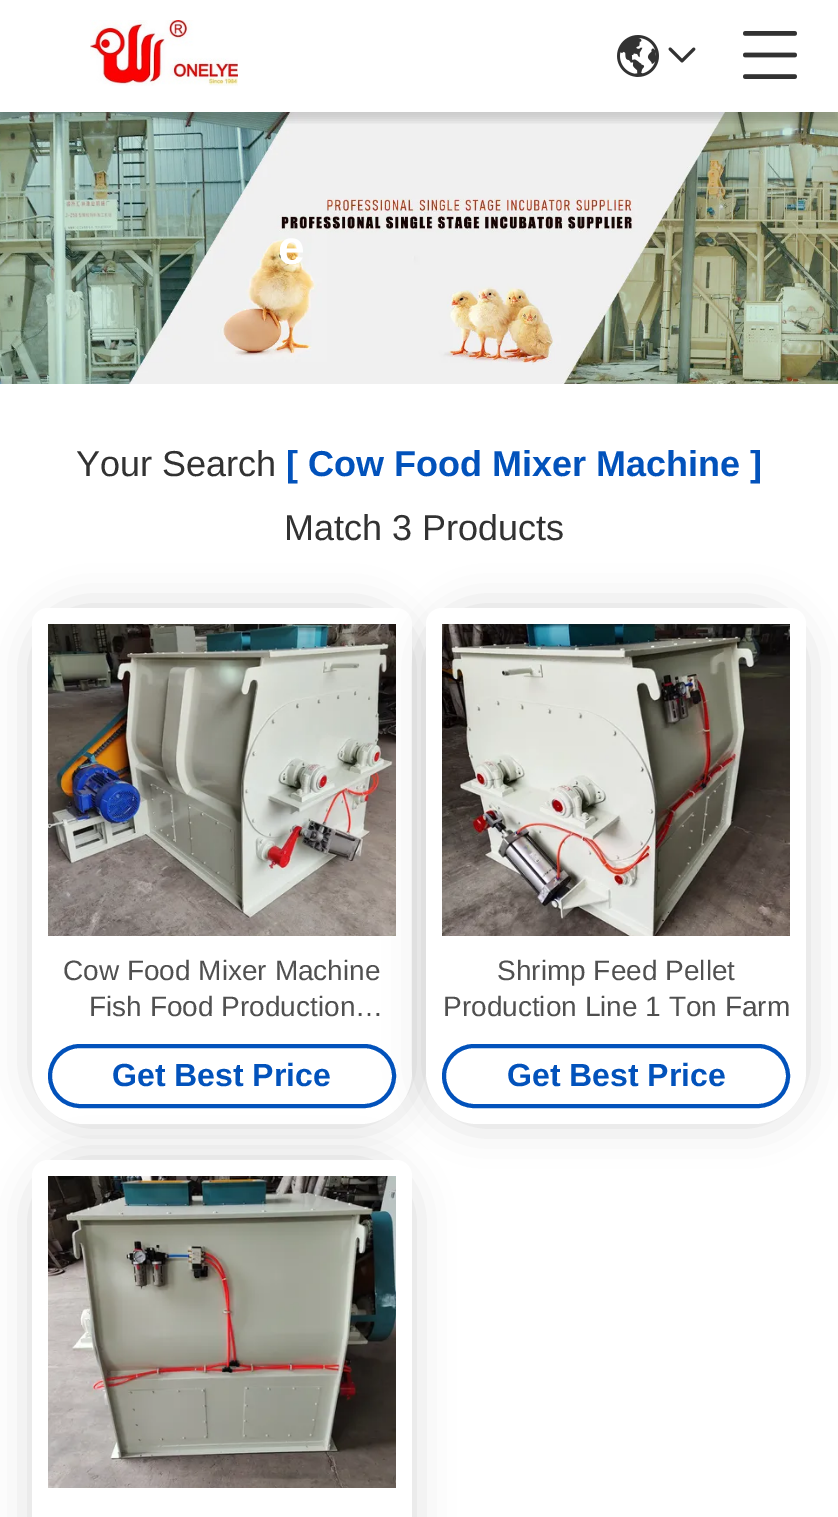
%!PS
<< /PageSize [838 1517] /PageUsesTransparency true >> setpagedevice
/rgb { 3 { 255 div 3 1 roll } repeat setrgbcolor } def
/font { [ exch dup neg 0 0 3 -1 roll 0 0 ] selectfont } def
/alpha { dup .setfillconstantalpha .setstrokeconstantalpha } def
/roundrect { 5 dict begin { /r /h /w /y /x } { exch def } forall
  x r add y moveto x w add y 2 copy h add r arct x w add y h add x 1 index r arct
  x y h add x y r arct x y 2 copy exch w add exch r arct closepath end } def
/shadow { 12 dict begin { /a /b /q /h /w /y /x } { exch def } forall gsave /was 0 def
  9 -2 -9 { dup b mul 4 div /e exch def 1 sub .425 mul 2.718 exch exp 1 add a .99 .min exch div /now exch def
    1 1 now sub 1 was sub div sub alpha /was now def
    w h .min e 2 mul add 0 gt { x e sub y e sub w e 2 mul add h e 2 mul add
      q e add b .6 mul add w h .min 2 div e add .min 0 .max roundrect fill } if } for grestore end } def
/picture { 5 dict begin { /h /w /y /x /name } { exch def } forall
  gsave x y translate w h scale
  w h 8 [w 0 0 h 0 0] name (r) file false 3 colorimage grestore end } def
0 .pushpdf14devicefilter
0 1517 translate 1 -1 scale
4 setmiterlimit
255 255 255 rgb
0 0 838 1517 rectfill
(img/5.rgb) 0 112 838 272 picture
gsave
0 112 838 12 rectclip
0 0 0 rgb
0 8 838 112 0 4 0.15 shadow
grestore
(img/1.rgb) 90 20 148 66 picture
(img/2.rgb) 617 35 42 42 picture
(img/3.rgb) 668 47 28 16 picture
(img/4.rgb) 743 31 54 48 picture
0 0 0 rgb
32 608 380 516 52 20 0.15 shadow
255 255 255 rgb
48 608 moveto 396 608 lineto 405 608 412 615 412 624 curveto 412 1072 lineto 412 1100.5 388.5 1124 360 1124 curveto 84 1124 lineto 55.5 1124 32 1100.5 32 1072 curveto 32 624 lineto 32 615 39 608 48 608 curveto closepath fill
0 0 0 rgb
426 608 380 516 52 20 0.15 shadow
(img/6.rgb) 48 624 348 312 picture
255 255 255 rgb
442 608 moveto 790 608 lineto 799 608 806 615 806 624 curveto 806 1072 lineto 806 1100.5 782.5 1124 754 1124 curveto 478 1124 lineto 449.5 1124 426 1100.5 426 1072 curveto 426 624 lineto 426 615 433 608 442 608 curveto closepath fill
0 0 0 rgb
32 1160 380 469 52 20 0.15 shadow
2 82 187 rgb
4 setlinewidth
50 1046 344 60 30 roundrect stroke
(img/7.rgb) 442 624 348 312 picture
444 1046 344 60 30 roundrect stroke
255 255 255 rgb
48 1160 moveto 396 1160 lineto 405 1160 412 1167 412 1176 curveto 412 1517 lineto 412 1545.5 388.5 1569 360 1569 curveto 84 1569 lineto 55.5 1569 32 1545.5 32 1517 curveto 32 1176 lineto 32 1167 39 1160 48 1160 curveto closepath fill
(img/8.rgb) 48 1176 348 312 picture
/LiberationSans-Bold 48 font
278 264 moveto (e) show
/LiberationSans-Regular 36 font
50 50 50 rgb
76 476 moveto (Your Search) show
/LiberationSans-Bold 36 font
2 82 187 rgb
286 476 moveto ([ Cow Food Mixer Machine ]) show
/LiberationSans-Regular 36 font
50 50 50 rgb
284 540 moveto (Match 3 Products) show
/LiberationSans-Regular 28 font
80 80 80 rgb
63 980 moveto (Cow Food Mixer Machine) show
89 1016 moveto (Fish Food Production…) show
/LiberationSans-Bold 32 font
2 82 187 rgb
112 1086 moveto (Get Best Price) show
/LiberationSans-Regular 28 font
80 80 80 rgb
497 980 moveto (Shrimp Feed Pellet) show
443 1016 moveto (Production Line 1 Ton Farm) show
/LiberationSans-Bold 32 font
2 82 187 rgb
507 1086 moveto (Get Best Price) show
.poppdf14devicefilter showpage
